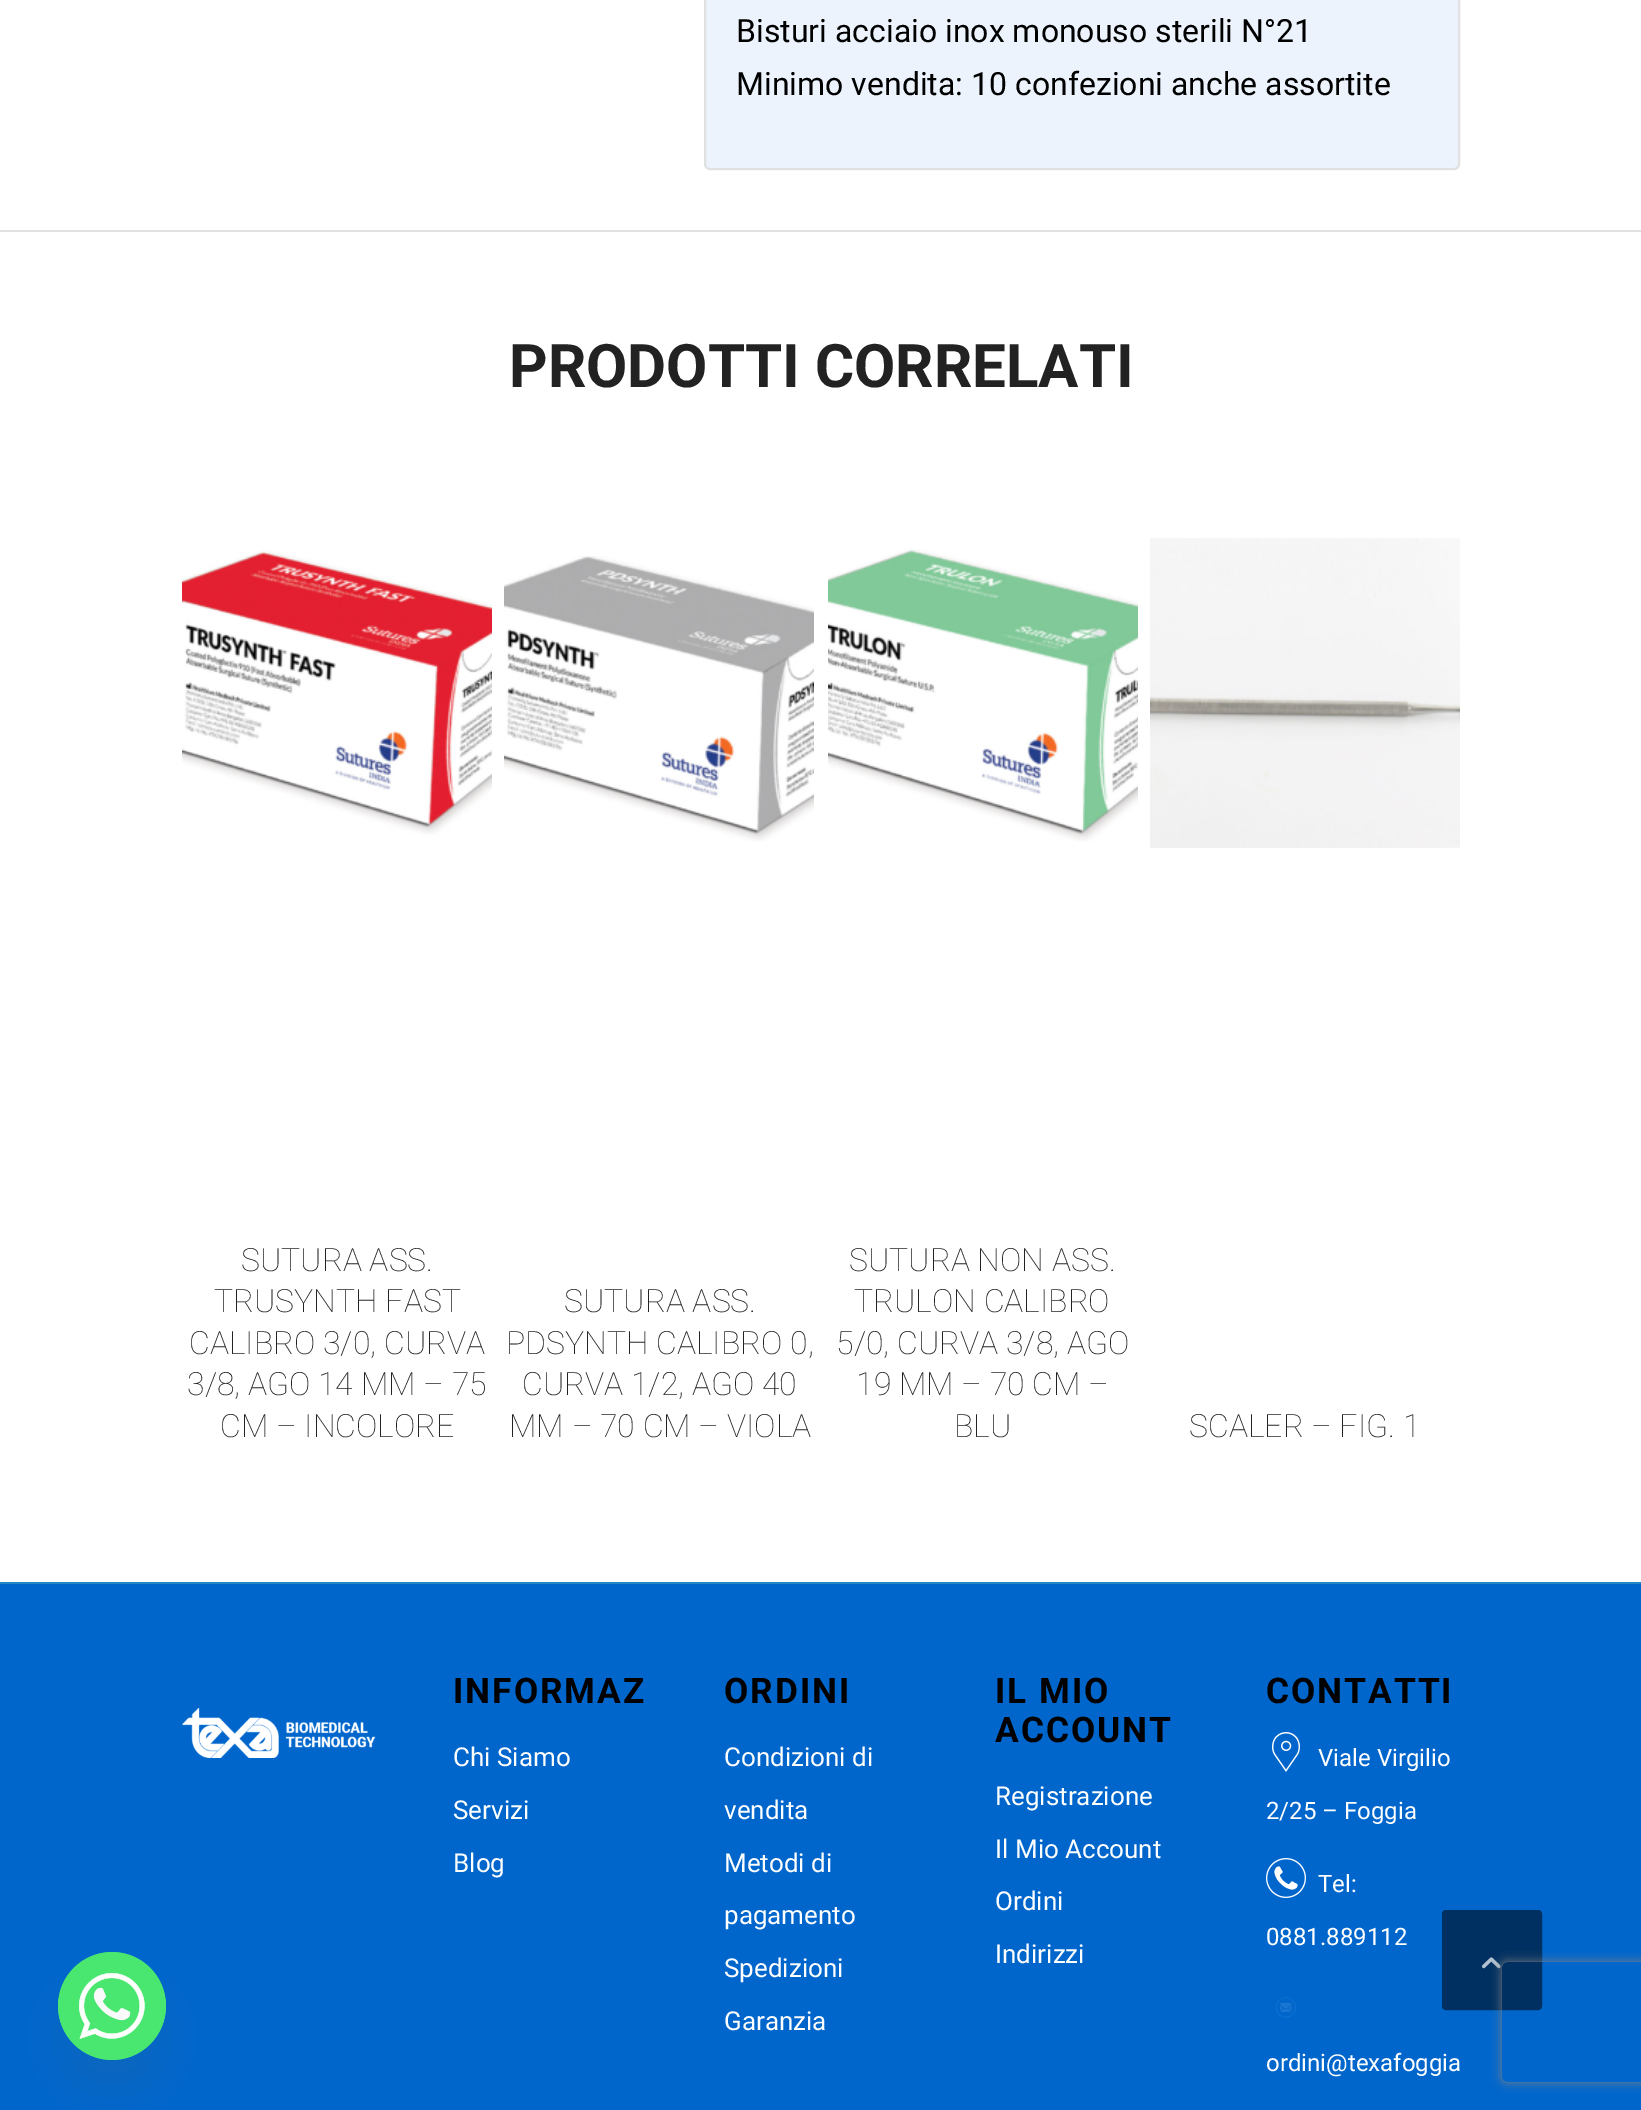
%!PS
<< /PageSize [1641 2110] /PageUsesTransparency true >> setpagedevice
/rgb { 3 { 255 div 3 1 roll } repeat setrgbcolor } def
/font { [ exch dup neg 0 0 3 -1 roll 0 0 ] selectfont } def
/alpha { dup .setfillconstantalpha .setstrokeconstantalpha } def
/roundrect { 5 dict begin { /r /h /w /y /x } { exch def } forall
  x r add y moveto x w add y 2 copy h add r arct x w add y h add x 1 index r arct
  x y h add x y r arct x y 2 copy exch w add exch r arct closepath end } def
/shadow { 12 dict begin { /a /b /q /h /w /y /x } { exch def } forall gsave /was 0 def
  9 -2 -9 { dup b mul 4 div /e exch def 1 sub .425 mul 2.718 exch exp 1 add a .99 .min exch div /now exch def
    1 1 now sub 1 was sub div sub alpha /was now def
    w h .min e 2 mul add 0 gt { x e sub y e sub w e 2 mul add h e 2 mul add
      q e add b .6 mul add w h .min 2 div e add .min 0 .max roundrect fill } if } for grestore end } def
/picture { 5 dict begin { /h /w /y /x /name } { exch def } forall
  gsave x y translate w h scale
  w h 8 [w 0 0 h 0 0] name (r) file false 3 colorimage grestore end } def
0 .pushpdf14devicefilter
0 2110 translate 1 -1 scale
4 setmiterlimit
255 255 255 rgb
0 0 1641 2110 rectfill
0 102 204 rgb
0 1584 1641 526 rectfill
73 104 126 rgb
58 1984 108 108 54 24 0.16 shadow
(img/1.rgb) 58 1952 108 108 picture
236 243 253 rgb
705 -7 moveto 1459 -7 lineto 1459 164 lineto 1459 167 1457 169 1454 169 curveto 710 169 lineto 707 169 705 167 705 164 curveto closepath gsave fill grestore
225 225 225 rgb
2 setlinewidth
stroke
0 230 1641 2 rectfill
(img/2.rgb) 182 550 310 285 picture
(img/3.rgb) 504 556 310 286 picture
(img/4.rgb) 828 549 310 293 picture
(img/5.rgb) 1150 538 310 310 picture
35 136 194 rgb
0 1582 1641 2 rectfill
(img/6.rgb) 182 1708 194 50 picture
(img/7.rgb) 1272 1732 28 40 picture
(img/8.rgb) 1266 1858 40 40 picture
(img/9.rgb) 1276 1997 20 21 picture
0 48 97 rgb
1443 1911 98 98 3 roundrect gsave fill grestore
stroke
(img/10.rgb) 1482 1957 19 12 picture
gsave
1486 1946 moveto 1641 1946 lineto 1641 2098 lineto 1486 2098 lineto closepath 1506 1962 moveto 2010 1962 lineto 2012 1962 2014 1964 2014 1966 curveto 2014 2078 lineto 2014 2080 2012 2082 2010 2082 curveto 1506 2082 lineto 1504 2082 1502 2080 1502 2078 curveto 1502 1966 lineto 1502 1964 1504 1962 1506 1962 curveto closepath eoclip newpath
128 128 128 rgb
1502 1962 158 120 4 5 1 shadow
grestore
/Roboto-Regular 32 font
0 0 0 rgb
736 42 moveto (Bisturi acciaio inox monouso sterili N°21) show
736 95 moveto (Minimo vendita: 10 confezioni anche assortite) show
/Roboto-Bold 60 font
34 34 34 rgb
509 387 moveto (PRODOTTI CORRELATI) show
/Roboto-Thin 32 font
[
  [(SUTURA ASS.) 241 1271]
  [(TRUSYNTH FAST) 214 1312]
  [(CALIBRO 3/0, CURVA) 189 1354]
  [(3/8, AGO 14 MM – 75) 187 1395]
  [(CM – INCOLORE) 220 1437]
  [(SUTURA ASS.) 564 1312]
  [(PDSYNTH CALIBRO 0,) 506 1354]
  [(CURVA 1/2, AGO 40) 522 1395]
  [(MM – 70 CM – VIOLA) 509 1437]
  [(SUTURA NON ASS.) 849 1271]
  [(TRULON CALIBRO) 854 1312]
  [(5/0, CURVA 3/8, AGO) 836 1354]
  [(19 MM – 70 CM –) 856 1395]
  [(BLU) 954 1437]
  [(SCALER – FIG. 1) 1189 1437]
] { aload pop moveto show } forall
/Roboto-Bold 35.25 font
0 0 0 rgb
453 1703 moveto 2 0 (INFORMAZ) ashow
/Roboto-Regular 26 font
255 255 255 rgb
[
  [(Chi Siamo) 453 1766]
  [(Servizi) 453 1819]
  [(Blog) 453 1872]
] { aload pop moveto show } forall
/Roboto-Bold 35.25 font
0 0 0 rgb
724 1703 moveto 2 0 (ORDINI) ashow
/Roboto-Regular 26 font
255 255 255 rgb
[
  [(Condizioni di) 724 1766]
  [(vendita) 724 1819]
  [(Metodi di) 724 1872]
  [(pagamento) 724 1924]
  [(Spedizioni) 724 1977]
  [(Garanzia) 724 2030]
] { aload pop moveto show } forall
/Roboto-Bold 35.25 font
0 0 0 rgb
995 1703 moveto 2 0 (IL MIO) ashow
995 1742 moveto 2 0 (ACCOUNT) ashow
/Roboto-Regular 26 font
255 255 255 rgb
[
  [(Registrazione) 995 1805]
  [(Il Mio Account) 995 1858]
  [(Ordini) 995 1910]
  [(Indirizzi) 995 1963]
] { aload pop moveto show } forall
/Roboto-Bold 35.25 font
0 0 0 rgb
1266 1703 moveto 2 0 (CONTATTI) ashow
/Roboto-Regular 24 font
255 255 255 rgb
[
  [(Viale Virgilio) 1318 1766]
  [(2/25 – Foggia) 1266 1819]
  [(Tel:) 1318 1892]
  [(0881.889112) 1266 1945]
  [(ordini@texafoggia) 1266 2071]
] { aload pop moveto show } forall
.poppdf14devicefilter showpage
